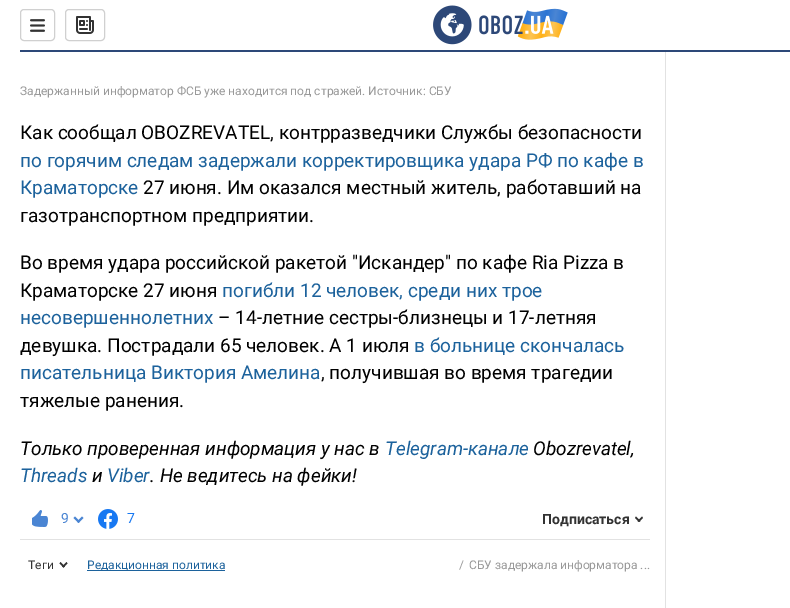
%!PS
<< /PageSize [790 608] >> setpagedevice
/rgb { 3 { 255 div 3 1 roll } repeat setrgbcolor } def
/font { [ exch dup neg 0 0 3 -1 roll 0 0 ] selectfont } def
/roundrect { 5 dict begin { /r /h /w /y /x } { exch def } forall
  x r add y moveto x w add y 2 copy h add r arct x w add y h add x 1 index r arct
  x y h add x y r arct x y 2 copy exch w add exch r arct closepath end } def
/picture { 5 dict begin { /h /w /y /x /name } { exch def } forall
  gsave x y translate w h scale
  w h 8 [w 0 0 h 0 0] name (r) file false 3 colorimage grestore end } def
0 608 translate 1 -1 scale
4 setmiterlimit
255 255 255 rgb
0 0 790 608 rectfill
45 72 120 rgb
20 50 770 2 rectfill
208 208 208 rgb
20.5 9.5 34 31 3.5 roundrect stroke
(img/1.rgb) 30 19 15 13 picture
65.5 9.5 39 31 3.5 roundrect stroke
(img/2.rgb) 76 16 18 18 picture
(img/3.rgb) 433 5 135 40 picture
226 226 226 rgb
20 539 630 1 rectfill
(img/4.rgb) 32 510 16 17 picture
74 133 211 rgb
82 516.5 moveto 83.5 518 lineto 78.5 523 lineto 77 521.5 lineto closepath fill
75 516.5 moveto 80 521.5 lineto 78.5 523 lineto 73.5 518 lineto closepath fill
(img/5.rgb) 98 509 20 20 picture
51 51 51 rgb
642 516.5 moveto 643 518 lineto 639 522 lineto 637.5 521 lineto closepath fill
636 516.5 moveto 640.5 521 lineto 639 522 lineto 635 518 lineto closepath fill
66.5 562 moveto 67.5 563.5 lineto 63.5 567.5 lineto 62 566.5 lineto closepath fill
60.5 562 moveto 65 566.5 lineto 63.5 567.5 lineto 59.5 563.5 lineto closepath fill
28 98 156 rgb
87 570 138 1 rectfill
226 226 226 rgb
665 52 1 556 rectfill
/Roboto-Regular 12 font
153 153 153 rgb
20 95 moveto (Задержанный информатор ФСБ уже находится под стражей. Источник: СБУ) show
/Roboto-Regular 19 font
0 0 0 rgb
20 139 moveto (Как сообщал OBOZREVATEL, контрразведчики Службы безопасности) show
28 98 156 rgb
20 167 moveto (по горячим следам задержали корректировщика удара РФ по кафе в) show
20 194 moveto (Краматорске) show
0 0 0 rgb
[
  [(27 июня. Им оказался местный житель, работавший на) 143 194]
  [(газотранспортном предприятии.) 20 222]
  [(Во время удара российской ракетой "Искандер" по кафе Ria Pizza в) 20 269]
  [(Краматорске 27 июня) 20 297]
] { aload pop moveto show } forall
28 98 156 rgb
222 297 moveto (погибли 12 человек, среди них трое) show
20 324 moveto (несовершеннолетних) show
0 0 0 rgb
218 324 moveto (– 14-летние сестры-близнецы и 17-летняя) show
20 352 moveto (девушка. Пострадали 65 человек. А 1 июля) show
28 98 156 rgb
414 352 moveto (в больнице скончалась) show
20 379 moveto (писательница Виктория Амелина) show
0 0 0 rgb
321 379 moveto (, получившая во время трагедии) show
20 407 moveto (тяжелые ранения.) show
/Roboto-Italic 19 font
20 455 moveto (Только проверенная информация у нас в) show
28 98 156 rgb
385 455 moveto (Telegram-канале) show
0 0 0 rgb
533 455 moveto (Obozrevatel,) show
28 98 156 rgb
20 482 moveto (Threads) show
0 0 0 rgb
92 482 moveto (и) show
28 98 156 rgb
107 482 moveto (Viber) show
0 0 0 rgb
150 482 moveto (. Не ведитесь на фейки!) show
/Roboto-Regular 14 font
74 133 211 rgb
61 523 moveto (9) show
23 120 242 rgb
127 523 moveto (7) show
/Roboto-Bold 14 font
51 51 51 rgb
542 524 moveto (Подписаться) show
/Roboto-Regular 12 font
28 569 moveto (Теги) show
28 98 156 rgb
87 569 moveto (Редакционная политика) show
153 153 153 rgb
459 569 moveto (/) show
469 569 moveto (СБУ задержала информатора ...) show
showpage
